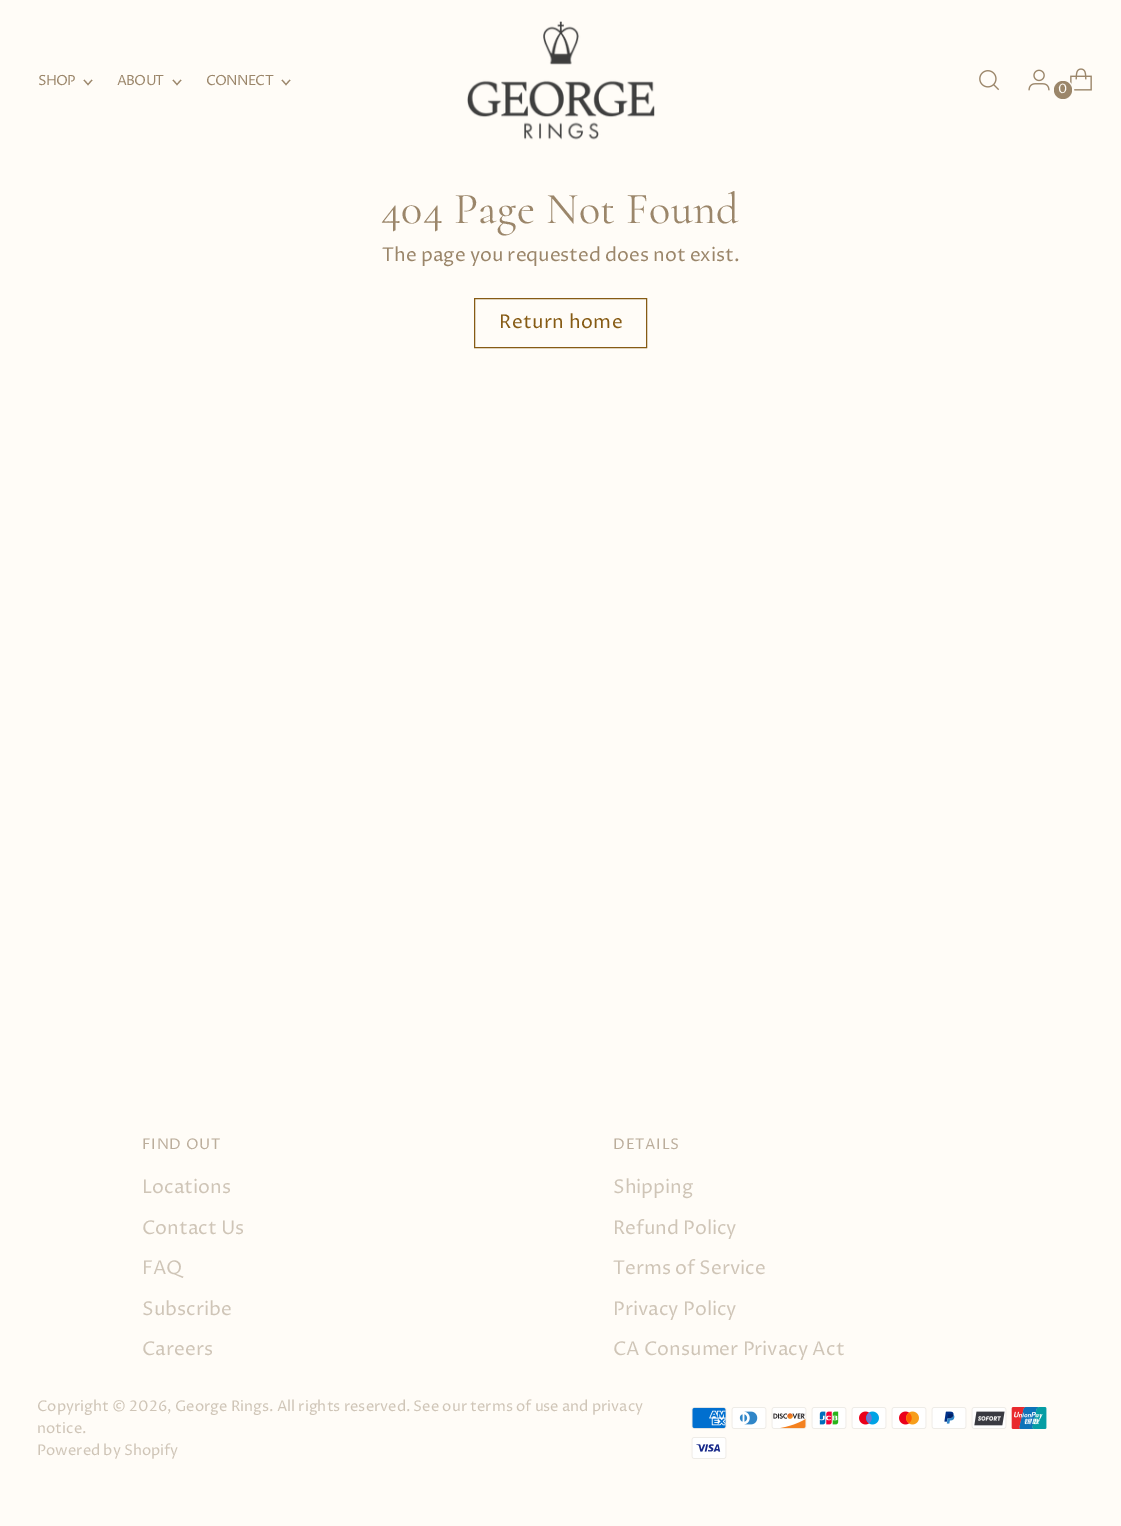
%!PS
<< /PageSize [1121 1526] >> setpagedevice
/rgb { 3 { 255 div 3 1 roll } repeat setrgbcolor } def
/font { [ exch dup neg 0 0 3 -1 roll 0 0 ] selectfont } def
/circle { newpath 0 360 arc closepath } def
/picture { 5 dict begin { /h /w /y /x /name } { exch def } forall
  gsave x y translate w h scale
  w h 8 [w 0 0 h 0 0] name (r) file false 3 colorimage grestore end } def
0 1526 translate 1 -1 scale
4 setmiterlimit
255 252 247 rgb
0 0 1121 1526 rectfill
155 134 106 rgb
1.1 setlinewidth
84 80 moveto 88 84.5 lineto 92 80 lineto stroke
173 80 moveto 177 84.5 lineto 181 80 lineto stroke
282 80 moveto 286 84.5 lineto 290 80 lineto stroke
(img/1.rgb) 467 21 188 119 picture
(img/2.rgb) 979 70 21 21 picture
(img/3.rgb) 1028 69 22 22 picture
(img/4.rgb) 1070 68 22 23 picture
255 252 247 rgb
2 setlinewidth
1063.5 90.5 9.5 circle stroke
155 134 106 rgb
1063 90 9 circle fill
134 91 20 rgb
1 setlinewidth
474.5 298.5 172 49 rectstroke
(img/5.rgb) 691 1407 36 22 picture
(img/6.rgb) 731 1407 36 22 picture
(img/7.rgb) 771 1407 36 22 picture
(img/8.rgb) 811 1407 36 22 picture
(img/9.rgb) 851 1407 36 22 picture
(img/10.rgb) 891 1407 36 22 picture
(img/11.rgb) 931 1407 36 22 picture
(img/12.rgb) 971 1407 36 22 picture
(img/13.rgb) 1011 1407 36 22 picture
(img/14.rgb) 691 1437 36 22 picture
/ProzaLibre-Regular 14 font
155 134 106 rgb
38 85 moveto -0.75 0 (SHOP) ashow
117 85 moveto -0.75 0 (ABOUT) ashow
206 85 moveto -0.75 0 (CONNECT) ashow
/ProzaLibre-Regular 13 font
255 252 247 rgb
1058 93 moveto (0) show
/Cormorant-Regular 44.25 font
155 134 106 rgb
381 223 moveto 0.4 0 (404 Page Not Found) ashow
/ProzaLibre-Regular 19 font
382 261 moveto (The page you requested does not exist.) show
134 91 20 rgb
499 328 moveto 0.4 0 (Return home) ashow
/ProzaLibre-Regular 14.75 font
187 173 155 rgb
142 1149 moveto 0.75 0 (FIND OUT) ashow
/ProzaLibre-Regular 19 font
207 197 183 rgb
[
  [(Locations) 142 1193]
  [(Contact Us) 142 1234]
  [(FAQ) 142 1274]
  [(Subscribe) 142 1315]
  [(Careers) 142 1355]
] { aload pop moveto show } forall
/ProzaLibre-Regular 14.75 font
187 173 155 rgb
613 1149 moveto 0.75 0 (DETAILS) ashow
/ProzaLibre-Regular 19 font
207 197 183 rgb
[
  [(Shipping) 613 1193]
  [(Refund Policy) 613 1234]
  [(Terms of Service) 613 1274]
  [(Privacy Policy) 613 1315]
  [(CA Consumer Privacy Act) 613 1355]
] { aload pop moveto show } forall
/ProzaLibre-Regular 14.75 font
[
  [(Copyright © 2026, George Rings. All rights reserved. See our terms of use and privacy) 37 1411]
  [(notice.) 37 1433]
  [(Powered by Shopify) 37 1455]
] { aload pop moveto show } forall
showpage
